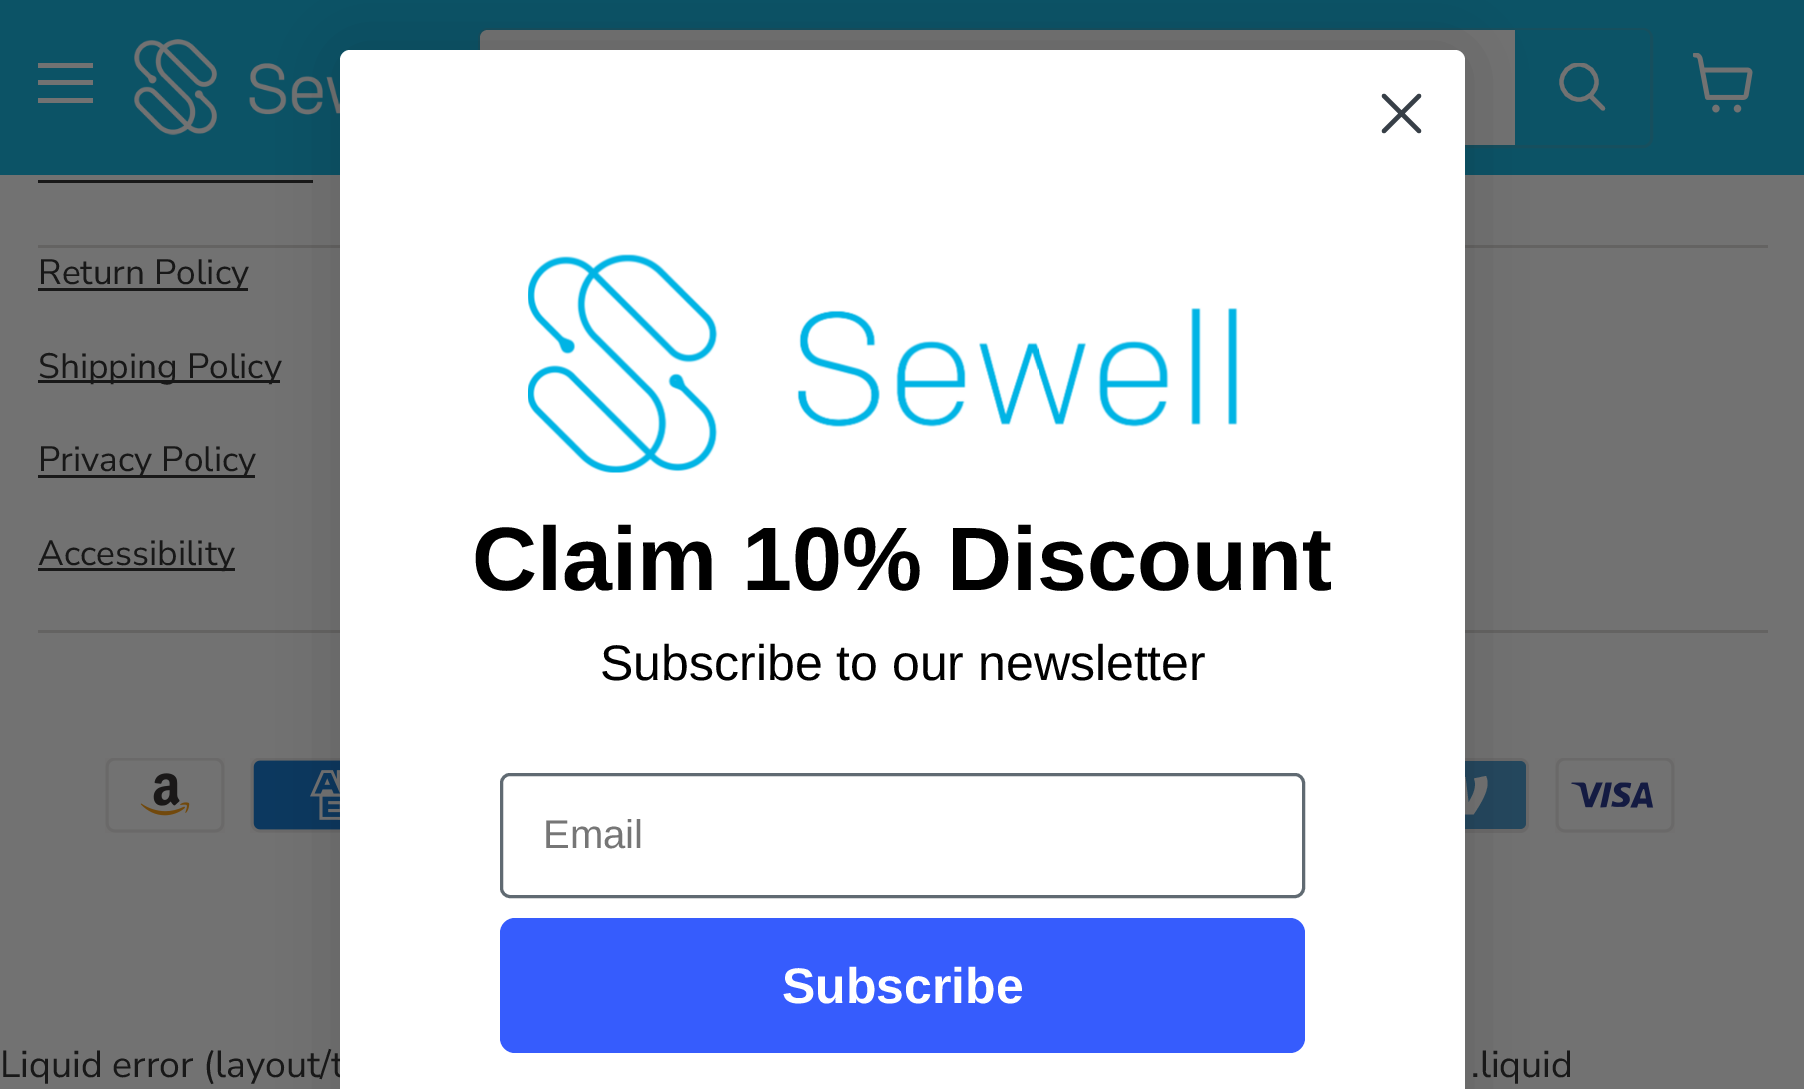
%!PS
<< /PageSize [1804 1089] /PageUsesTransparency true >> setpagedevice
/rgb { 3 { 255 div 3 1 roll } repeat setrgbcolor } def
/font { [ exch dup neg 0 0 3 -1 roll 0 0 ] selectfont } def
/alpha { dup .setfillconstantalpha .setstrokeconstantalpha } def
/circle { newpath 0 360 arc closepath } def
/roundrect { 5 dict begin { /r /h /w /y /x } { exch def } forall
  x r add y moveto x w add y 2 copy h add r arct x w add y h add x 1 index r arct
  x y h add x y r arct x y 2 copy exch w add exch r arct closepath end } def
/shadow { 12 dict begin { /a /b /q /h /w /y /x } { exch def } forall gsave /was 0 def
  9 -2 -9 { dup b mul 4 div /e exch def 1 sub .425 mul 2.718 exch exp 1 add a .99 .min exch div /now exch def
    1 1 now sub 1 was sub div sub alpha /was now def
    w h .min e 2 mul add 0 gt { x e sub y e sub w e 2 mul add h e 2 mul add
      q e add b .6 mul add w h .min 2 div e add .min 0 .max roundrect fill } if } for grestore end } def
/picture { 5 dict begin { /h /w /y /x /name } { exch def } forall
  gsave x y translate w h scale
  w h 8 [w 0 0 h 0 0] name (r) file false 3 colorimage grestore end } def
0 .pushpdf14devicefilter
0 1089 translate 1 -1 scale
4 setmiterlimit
114 114 114 rgb
0 0 1804 1089 rectfill
[
  [0 0 1804 175 12 83 102]
  [38 63 55 5 114 114 114]
  [38 80 55 5 114 114 114]
  [38 98 55 5 114 114 114]
] { aload pop rgb rectfill } forall
(img/1.rgb) 134 39 206 97 picture
0.2 alpha
63 63 63 rgb
3 setlinewidth
479.5 29.5 1172 117 8.5 roundrect stroke
1 alpha
114 114 114 rgb
488 30 moveto 1515 30 lineto 1515 145 lineto 488 145 lineto 483.5 145 480 141.5 480 137 curveto 480 38 lineto 480 33.5 483.5 30 488 30 curveto closepath fill
12 83 102 rgb
1515 30 moveto 1642 30 lineto 1646.5 30 1650 33.5 1650 38 curveto 1650 137 lineto 1650 141.5 1646.5 145 1642 145 curveto 1515 145 lineto closepath fill
114 114 114 rgb
4.3 setlinewidth
1 setlinecap
1603 108.5 moveto 1591 96.5 lineto stroke
gsave
1558 63 50 52 rectclip
0 setlinecap
1579 82 17.5 circle stroke
grestore
(img/2.rgb) 1693 53 60 60 picture
[
  [38 245 1730 3 100 99 98]
  [38 180 275 3 24 24 24]
  [38 630 1730 3 100 99 98]
  [38 288 210 3 24 24 24]
  [38 380 242 3 24 24 24]
  [38 475 217 3 24 24 24]
  [38 568 197 3 24 24 24]
] { aload pop rgb rectfill } forall
(img/3.rgb) 105 758 120 75 picture
(img/4.rgb) 250 758 90 75 picture
106 105 105 rgb
1411 758 118 75 9 roundrect fill
36 72 94 rgb
1520 761 moveto 1523 761 1526 763 1526 767 curveto 1526 823 lineto 1526 827 1523 829 1520 829 curveto 1420 829 lineto 1417 829 1414 827 1414 823 curveto 1414 767 lineto 1414 763 1417 761 1420 761 curveto 1520 761 lineto eofill
114 114 114 rgb
1487.5 783.5 moveto 1487.5 793 1479.5 805.5 1473.5 814.5 curveto 1458.5 814.5 lineto 1452.5 778 lineto 1465.5 777 lineto 1468.5 802.5 lineto 1472.5 796 1477.5 786.5 1474 778.5 curveto 1486 776 lineto 1487 778 1487.5 780.5 1487.5 783.5 curveto closepath fill
(img/5.rgb) 1555 758 120 75 picture
0 0 0 rgb
340 50 1125 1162 10 37.5 0.15 shadow
/NunitoSans-Regular 35.25 font
24 24 24 rgb
[
  [(Return Policy) 38 284]
  [(Shipping Policy) 38 378]
  [(Privacy Policy) 38 471]
  [(Accessibility) 38 565]
] { aload pop moveto show } forall
/NunitoSans-Regular 37.5 font
0 1077 moveto (Liquid error \(layout/t) show
255 255 255 rgb
350 50 moveto 1455 50 lineto 1460.5 50 1465 54.5 1465 60 curveto 1465 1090 lineto 340 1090 lineto 340 60 lineto 340 54.5 344.5 50 350 50 curveto closepath fill
55 63 71 rgb
4.4 setlinewidth
1 setlinejoin
1384 96 moveto 1419 131 lineto 1384 131 moveto 1419 96 lineto closepath stroke
54 92 253 rgb
500 918 805 135 15 roundrect fill
/LiberationSans-Bold 50 font
255 255 255 rgb
782 1003 moveto (Subscribe) show
96 106 114 rgb
3 setlinewidth
0 setlinecap
0 setlinejoin
501.5 774.5 802 122 8.5 roundrect stroke
/LiberationSans-Regular 40 font
118 118 118 rgb
543 848 moveto (Email) show
/LiberationSans-Regular 50 font
0 0 0 rgb
600 680 moveto (Subscribe to our newsletter) show
/LiberationSans-Bold 90 font
472 590 moveto (Claim 10% Discount) show
(img/6.rgb) 528 254 710 219 picture
/NunitoSans-Regular 37.5 font
24 24 24 rgb
1471 1077 moveto (.liquid) show
.poppdf14devicefilter showpage
